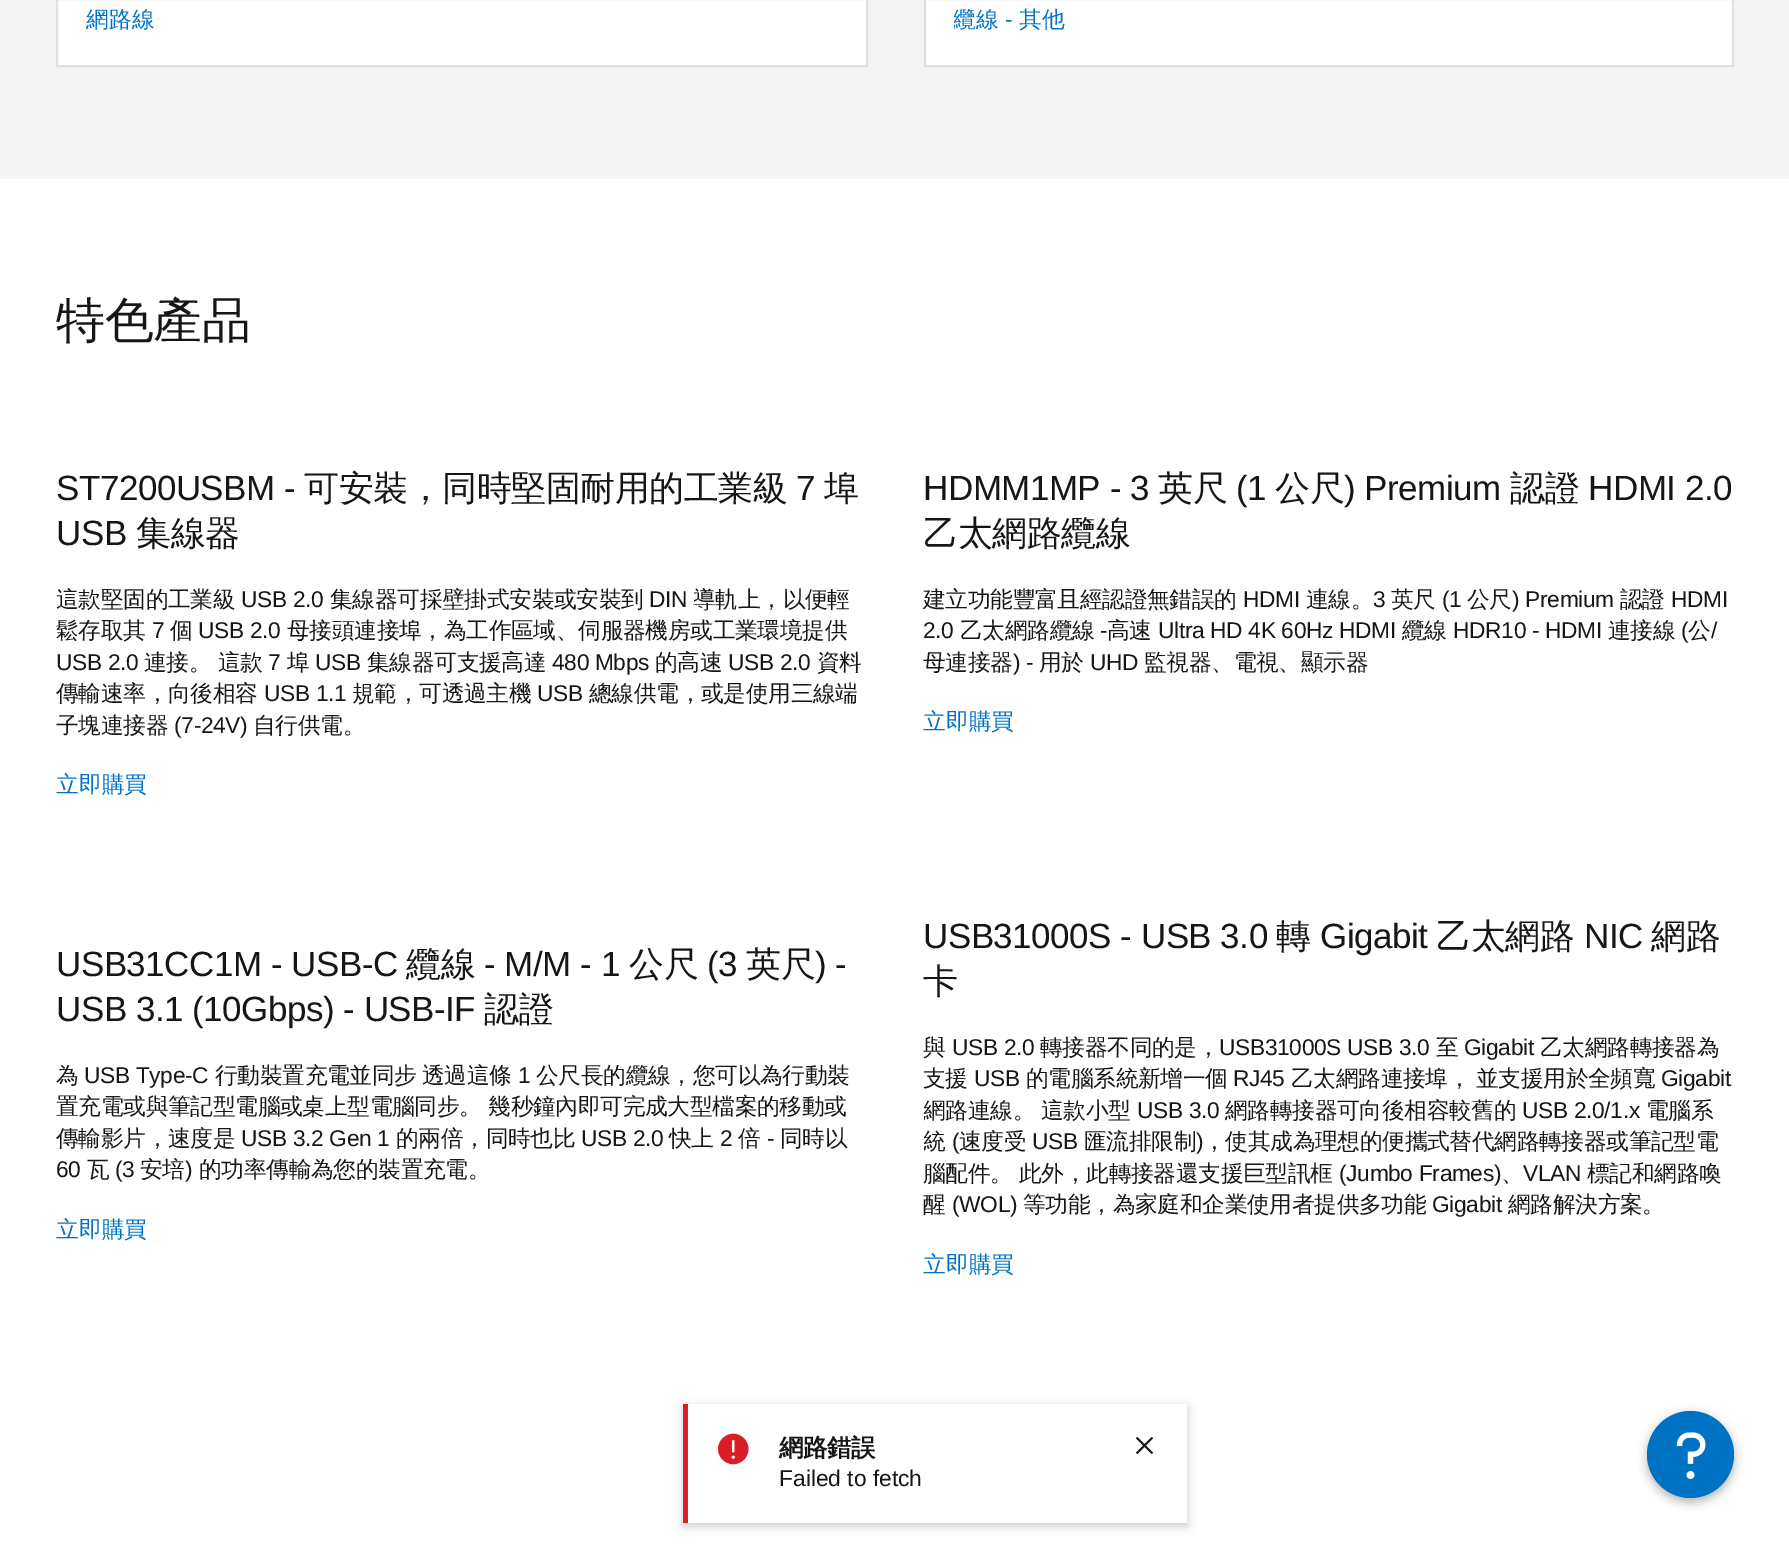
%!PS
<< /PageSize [1789 1554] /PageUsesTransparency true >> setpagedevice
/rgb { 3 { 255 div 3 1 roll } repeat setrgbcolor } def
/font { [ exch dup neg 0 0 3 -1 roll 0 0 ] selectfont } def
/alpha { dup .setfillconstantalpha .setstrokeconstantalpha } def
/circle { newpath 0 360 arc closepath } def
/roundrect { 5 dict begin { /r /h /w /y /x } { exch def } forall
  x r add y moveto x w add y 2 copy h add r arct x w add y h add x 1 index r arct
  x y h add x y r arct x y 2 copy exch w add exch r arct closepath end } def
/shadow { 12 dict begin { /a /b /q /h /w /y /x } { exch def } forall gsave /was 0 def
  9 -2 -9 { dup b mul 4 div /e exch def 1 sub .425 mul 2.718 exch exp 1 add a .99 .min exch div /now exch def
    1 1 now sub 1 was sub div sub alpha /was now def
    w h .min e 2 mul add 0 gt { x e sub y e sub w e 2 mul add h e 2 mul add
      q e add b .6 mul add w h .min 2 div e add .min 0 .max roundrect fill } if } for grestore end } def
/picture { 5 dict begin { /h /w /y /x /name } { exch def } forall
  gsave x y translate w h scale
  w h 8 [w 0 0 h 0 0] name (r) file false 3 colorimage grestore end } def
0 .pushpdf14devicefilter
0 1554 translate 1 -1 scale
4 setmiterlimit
255 255 255 rgb
0 0 1789 1554 rectfill
244 244 244 rgb
0 0 1789 179 rectfill
255 255 255 rgb
57 -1 moveto 867 -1 lineto 867 66 lineto 57 66 lineto closepath gsave fill grestore
224 224 224 rgb
2 setlinewidth
stroke
255 255 255 rgb
925 -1 moveto 1733 -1 lineto 1733 66 lineto 925 66 lineto closepath gsave fill grestore
224 224 224 rgb
stroke
0 0 0 rgb
683 1407 504 119 0 5 0.2 shadow
255 255 255 rgb
688 1404 499 119 rectfill
218 30 40 rgb
683 1404 5 119 rectfill
(img/1.rgb) 717 1433 32 32 picture
(img/2.rgb) 1135 1436 19 19 picture
0 0 0 rgb
1647 1414 87 88 43.5 5 0.3 shadow
0 114 195 rgb
1690.5 1454.5 43.5 circle fill
(img/3.rgb) 1676 1432 30 47 picture
/WenQuanYiZenHei-Medium 22.75 font
86 27 moveto (網路線) show
gsave
954 5 110 32 rectclip
953 27 moveto (纜線) show
grestore
/LiberationSans-Regular 22.75 font
1005 27 moveto (-) show
/WenQuanYiZenHei-Medium 22.75 font
1019 27 moveto (其他) show
/WenQuanYiZenHei-Medium 49 font
22 22 22 rgb
56 337 moveto -0.5 0 (特色產品) ashow
/LiberationSans-Regular 35 font
56 500 moveto -0.5 0 (ST7200USBM -) ashow
/WenQuanYiZenHei-Medium 35 font
304 500 moveto -0.5 0 (可安裝，同時堅固耐用的工業級) ashow
/LiberationSans-Regular 35 font
796 500 moveto -0.5 0 (7) ashow
/WenQuanYiZenHei-Medium 35 font
824 500 moveto -0.5 0 (埠) ashow
/LiberationSans-Regular 35 font
56 545 moveto -0.5 0 (USB) ashow
/WenQuanYiZenHei-Medium 35 font
136 545 moveto -0.5 0 (集線器) ashow
/WenQuanYiZenHei-Medium 22.75 font
56 607 moveto -0.35 0 (這款堅固的工業級) ashow
/LiberationSans-Regular 22.75 font
241 607 moveto -0.35 0 (USB 2.0) ashow
/WenQuanYiZenHei-Medium 22.75 font
330 607 moveto -0.35 0 (集線器可採壁掛式安裝或安裝到) ashow
/LiberationSans-Regular 22.75 font
649 607 moveto -0.35 0 (DIN) ashow
/WenQuanYiZenHei-Medium 22.75 font
693 607 moveto -0.35 0 (導軌上，以便輕) ashow
56 638 moveto -0.35 0 (鬆存取其) ashow
/LiberationSans-Regular 22.75 font
152 638 moveto -0.35 0 (7) ashow
/WenQuanYiZenHei-Medium 22.75 font
170 638 moveto -0.35 0 (個) ashow
/LiberationSans-Regular 22.75 font
198 638 moveto -0.35 0 (USB 2.0) ashow
/WenQuanYiZenHei-Medium 22.75 font
287 638 moveto -0.35 0 (母接頭連接埠，為工作區域、伺服器機房或工業環境提供) ashow
/LiberationSans-Regular 22.75 font
56 670 moveto -0.35 0 (USB 2.0) ashow
/WenQuanYiZenHei-Medium 22.75 font
144 670 moveto -0.35 0 (連接。) ashow
218 670 moveto -0.35 0 (這款) ashow
/LiberationSans-Regular 22.75 font
268 670 moveto -0.35 0 (7) ashow
/WenQuanYiZenHei-Medium 22.75 font
287 670 moveto -0.35 0 (埠) ashow
/LiberationSans-Regular 22.75 font
315 670 moveto -0.35 0 (USB) ashow
/WenQuanYiZenHei-Medium 22.75 font
367 670 moveto -0.35 0 (集線器可支援高達) ashow
/LiberationSans-Regular 22.75 font
552 670 moveto -0.35 0 (480 Mbps) ashow
/WenQuanYiZenHei-Medium 22.75 font
655 670 moveto -0.35 0 (的高速) ashow
/LiberationSans-Regular 22.75 font
728 670 moveto -0.35 0 (USB 2.0) ashow
/WenQuanYiZenHei-Medium 22.75 font
817 670 moveto -0.35 0 (資料) ashow
56 701 moveto -0.35 0 (傳輸速率，向後相容) ashow
/LiberationSans-Regular 22.75 font
264 701 moveto -0.35 0 (USB 1.1) ashow
/WenQuanYiZenHei-Medium 22.75 font
352 701 moveto -0.35 0 (規範，可透過主機) ashow
/LiberationSans-Regular 22.75 font
537 701 moveto -0.35 0 (USB) ashow
/WenQuanYiZenHei-Medium 22.75 font
589 701 moveto -0.35 0 (總線供電，或是使用三線端) ashow
56 733 moveto -0.35 0 (子塊連接器) ashow
/LiberationSans-Regular 22.75 font
174 733 moveto -0.35 0 (\(7-24V\)) ashow
/WenQuanYiZenHei-Medium 22.75 font
253 733 moveto -0.35 0 (自行供電。) ashow
0 114 195 rgb
56 792 moveto (立即購買) show
/LiberationSans-Regular 35 font
22 22 22 rgb
923 500 moveto -0.5 0 (HDMM1MP - 3) ashow
/WenQuanYiZenHei-Medium 35 font
1158 500 moveto -0.5 0 (英尺) ashow
/LiberationSans-Regular 35 font
1236 500 moveto -0.5 0 (\(1) ashow
/WenQuanYiZenHei-Medium 35 font
1275 500 moveto -0.5 0 (公尺) ashow
/LiberationSans-Regular 35 font
1344 500 moveto -0.5 0 (\) Premium) ashow
/WenQuanYiZenHei-Medium 35 font
1510 500 moveto -0.5 0 (認證) ashow
/LiberationSans-Regular 35 font
1588 500 moveto -0.5 0 (HDMI 2.0) ashow
/WenQuanYiZenHei-Medium 35 font
923 545 moveto -0.5 0 (乙太網路纜線) ashow
/WenQuanYiZenHei-Medium 22.75 font
923 607 moveto -0.35 0 (建立功能豐富且經認證無錯誤的) ashow
/LiberationSans-Regular 22.75 font
1243 607 moveto -0.35 0 (HDMI) ashow
/WenQuanYiZenHei-Medium 22.75 font
1306 607 moveto -0.35 0 (連線。) ashow
/LiberationSans-Regular 22.75 font
1373 607 moveto -0.35 0 (3) ashow
/WenQuanYiZenHei-Medium 22.75 font
1391 607 moveto -0.35 0 (英尺) ashow
/LiberationSans-Regular 22.75 font
1442 607 moveto -0.35 0 (\(1) ashow
/WenQuanYiZenHei-Medium 22.75 font
1467 607 moveto -0.35 0 (公尺) ashow
/LiberationSans-Regular 22.75 font
1512 607 moveto -0.35 0 (\) Premium) ashow
/WenQuanYiZenHei-Medium 22.75 font
1620 607 moveto -0.35 0 (認證) ashow
/LiberationSans-Regular 22.75 font
1671 607 moveto -0.35 0 (HDMI) ashow
923 638 moveto -0.35 0 (2.0) ashow
/WenQuanYiZenHei-Medium 22.75 font
960 638 moveto -0.35 0 (乙太網路纜線) ashow
/LiberationSans-Regular 22.75 font
1100 638 moveto -0.35 0 (-) ashow
/WenQuanYiZenHei-Medium 22.75 font
1107 638 moveto -0.35 0 (高速) ashow
/LiberationSans-Regular 22.75 font
1158 638 moveto -0.35 0 (Ultra HD 4K 60Hz HDMI) ashow
/WenQuanYiZenHei-Medium 22.75 font
1402 638 moveto -0.35 0 (纜線) ashow
/LiberationSans-Regular 22.75 font
1453 638 moveto -0.35 0 (HDR10 - HDMI) ashow
/WenQuanYiZenHei-Medium 22.75 font
1608 638 moveto -0.35 0 (連接線) ashow
/LiberationSans-Regular 22.75 font
1681 638 moveto -0.35 0 (\() ashow
/WenQuanYiZenHei-Medium 22.75 font
1688 638 moveto -0.35 0 (公) ashow
/LiberationSans-Regular 22.75 font
1711 638 moveto -0.35 0 (/) ashow
/WenQuanYiZenHei-Medium 22.75 font
923 670 moveto -0.35 0 (母連接器) ashow
/LiberationSans-Regular 22.75 font
1013 670 moveto -0.35 0 (\) -) ashow
/WenQuanYiZenHei-Medium 22.75 font
1039 670 moveto -0.35 0 (用於) ashow
/LiberationSans-Regular 22.75 font
1090 670 moveto -0.35 0 (UHD) ashow
/WenQuanYiZenHei-Medium 22.75 font
1144 670 moveto -0.35 0 (監視器、電視、顯示器) ashow
0 114 195 rgb
923 729 moveto (立即購買) show
/LiberationSans-Regular 35 font
22 22 22 rgb
56 976 moveto -0.5 0 (USB31CC1M - USB-C) ashow
/WenQuanYiZenHei-Medium 35 font
406 976 moveto -0.5 0 (纜線) ashow
/LiberationSans-Regular 35 font
484 976 moveto -0.5 0 (- M/M - 1) ashow
/WenQuanYiZenHei-Medium 35 font
629 976 moveto -0.5 0 (公尺) ashow
/LiberationSans-Regular 35 font
707 976 moveto -0.5 0 (\(3) ashow
/WenQuanYiZenHei-Medium 35 font
746 976 moveto -0.5 0 (英尺) ashow
/LiberationSans-Regular 35 font
815 976 moveto -0.5 0 (\) -) ashow
56 1021 moveto -0.5 0 (USB 3.1 \(10Gbps\) - USB-IF) ashow
/WenQuanYiZenHei-Medium 35 font
484 1021 moveto -0.5 0 (認證) ashow
/WenQuanYiZenHei-Medium 22.75 font
56 1083 moveto -0.35 0 (為) ashow
/LiberationSans-Regular 22.75 font
84 1083 moveto -0.35 0 (USB Type-C) ashow
/WenQuanYiZenHei-Medium 22.75 font
215 1083 moveto -0.35 0 (行動裝置充電並同步) ashow
422 1083 moveto -0.35 0 (透過這條) ashow
/LiberationSans-Regular 22.75 font
518 1083 moveto -0.35 0 (1) ashow
/WenQuanYiZenHei-Medium 22.75 font
536 1083 moveto -0.35 0 (公尺長的纜線，您可以為行動裝) ashow
56 1114 moveto -0.35 0 (置充電或與筆記型電腦或桌上型電腦同步。 幾秒鐘內即可完成大型檔案的移動或) ashow
56 1146 moveto -0.35 0 (傳輸影片，速度是) ashow
/LiberationSans-Regular 22.75 font
241 1146 moveto -0.35 0 (USB 3.2 Gen 1) ashow
/WenQuanYiZenHei-Medium 22.75 font
396 1146 moveto -0.35 0 (的兩倍，同時也比) ashow
/LiberationSans-Regular 22.75 font
581 1146 moveto -0.35 0 (USB 2.0) ashow
/WenQuanYiZenHei-Medium 22.75 font
669 1146 moveto -0.35 0 (快上) ashow
/LiberationSans-Regular 22.75 font
720 1146 moveto -0.35 0 (2) ashow
/WenQuanYiZenHei-Medium 22.75 font
738 1146 moveto -0.35 0 (倍) ashow
/LiberationSans-Regular 22.75 font
767 1146 moveto -0.35 0 (-) ashow
/WenQuanYiZenHei-Medium 22.75 font
780 1146 moveto -0.35 0 (同時以) ashow
/LiberationSans-Regular 22.75 font
56 1177 moveto -0.35 0 (60) ashow
/WenQuanYiZenHei-Medium 22.75 font
87 1177 moveto -0.35 0 (瓦) ashow
/LiberationSans-Regular 22.75 font
115 1177 moveto -0.35 0 (\(3) ashow
/WenQuanYiZenHei-Medium 22.75 font
140 1177 moveto -0.35 0 (安培) ashow
/LiberationSans-Regular 22.75 font
185 1177 moveto -0.35 0 (\)) ashow
/WenQuanYiZenHei-Medium 22.75 font
199 1177 moveto -0.35 0 (的功率傳輸為您的裝置充電。) ashow
0 114 195 rgb
56 1237 moveto (立即購買) show
/LiberationSans-Regular 35 font
22 22 22 rgb
923 948 moveto -0.5 0 (USB31000S - USB 3.0) ashow
/WenQuanYiZenHei-Medium 35 font
1276 948 moveto -0.5 0 (轉) ashow
/LiberationSans-Regular 35 font
1320 948 moveto -0.5 0 (Gigabit) ashow
/WenQuanYiZenHei-Medium 35 font
1436 948 moveto -0.5 0 (乙太網路) ashow
/LiberationSans-Regular 35 font
1584 948 moveto -0.5 0 (NIC) ashow
/WenQuanYiZenHei-Medium 35 font
1651 948 moveto -0.5 0 (網路) ashow
923 993 moveto -0.5 0 (卡) ashow
/WenQuanYiZenHei-Medium 22.75 font
923 1055 moveto -0.35 0 (與) ashow
/LiberationSans-Regular 22.75 font
952 1055 moveto -0.35 0 (USB 2.0) ashow
/WenQuanYiZenHei-Medium 22.75 font
1040 1055 moveto -0.35 0 (轉接器不同的是，) ashow
/LiberationSans-Regular 22.75 font
1219 1055 moveto -0.35 0 (USB31000S USB 3.0) ashow
/WenQuanYiZenHei-Medium 22.75 font
1436 1055 moveto -0.35 0 (至) ashow
/LiberationSans-Regular 22.75 font
1464 1055 moveto -0.35 0 (Gigabit) ashow
/WenQuanYiZenHei-Medium 22.75 font
1540 1055 moveto -0.35 0 (乙太網路轉接器為) ashow
923 1086 moveto -0.35 0 (支援) ashow
/LiberationSans-Regular 22.75 font
974 1086 moveto -0.35 0 (USB) ashow
/WenQuanYiZenHei-Medium 22.75 font
1026 1086 moveto -0.35 0 (的電腦系統新增一個) ashow
/LiberationSans-Regular 22.75 font
1233 1086 moveto -0.35 0 (RJ45) ashow
/WenQuanYiZenHei-Medium 22.75 font
1291 1086 moveto -0.35 0 (乙太網路連接埠，) ashow
1476 1086 moveto -0.35 0 (並支援用於全頻寬) ashow
/LiberationSans-Regular 22.75 font
1661 1086 moveto -0.35 0 (Gigabit) ashow
gsave
924 1033 810 189 rectclip
/WenQuanYiZenHei-Medium 22.75 font
923 1118 moveto -0.35 0 (網路連線。) ashow
grestore
/WenQuanYiZenHei-Medium 22.75 font
1041 1118 moveto -0.35 0 (這款小型) ashow
/LiberationSans-Regular 22.75 font
1137 1118 moveto -0.35 0 (USB 3.0) ashow
/WenQuanYiZenHei-Medium 22.75 font
1225 1118 moveto -0.35 0 (網路轉接器可向後相容較舊的) ashow
/LiberationSans-Regular 22.75 font
1522 1118 moveto -0.35 0 (USB 2.0/1.x) ashow
/WenQuanYiZenHei-Medium 22.75 font
1646 1118 moveto -0.35 0 (電腦系) ashow
gsave
924 1033 810 189 rectclip
923 1149 moveto -0.35 0 (統) ashow
grestore
/LiberationSans-Regular 22.75 font
952 1149 moveto -0.35 0 (\() ashow
/WenQuanYiZenHei-Medium 22.75 font
959 1149 moveto -0.35 0 (速度受) ashow
/LiberationSans-Regular 22.75 font
1032 1149 moveto -0.35 0 (USB) ashow
/WenQuanYiZenHei-Medium 22.75 font
1084 1149 moveto -0.35 0 (匯流排限制) ashow
/LiberationSans-Regular 22.75 font
1196 1149 moveto -0.35 0 (\)) ashow
/WenQuanYiZenHei-Medium 22.75 font
1203 1149 moveto -0.35 0 (，使其成為理想的便攜式替代網路轉接器或筆記型電) ashow
923 1181 moveto -0.35 0 (腦配件。) ashow
1019 1181 moveto -0.35 0 (此外，此轉接器還支援巨型訊框) ashow
/LiberationSans-Regular 22.75 font
1339 1181 moveto -0.35 0 (\(Jumbo Frames\)) ashow
1523 1181 moveto -0.35 0 (VLAN) ashow
/WenQuanYiZenHei-Medium 22.75 font
1587 1181 moveto -0.35 0 (標記和網路喚) ashow
1501 1181 moveto -0.35 0 (、) ashow
923 1212 moveto -0.35 0 (醒) ashow
/LiberationSans-Regular 22.75 font
952 1212 moveto -0.35 0 (\(WOL\)) ashow
/WenQuanYiZenHei-Medium 22.75 font
1023 1212 moveto -0.35 0 (等功能，為家庭和企業使用者提供多功能) ashow
/LiberationSans-Regular 22.75 font
1432 1212 moveto -0.35 0 (Gigabit) ashow
/WenQuanYiZenHei-Medium 22.75 font
1508 1212 moveto -0.35 0 (網路解決方案。) ashow
0 114 195 rgb
923 1272 moveto (立即購買) show
/WenQuanYiZenHei-Bold 24.5 font
22 22 22 rgb
779 1456 moveto -0.35 0 (網路錯誤) ashow
/LiberationSans-Regular 22.75 font
779 1486 moveto (Failed to fetch) show
.poppdf14devicefilter showpage
